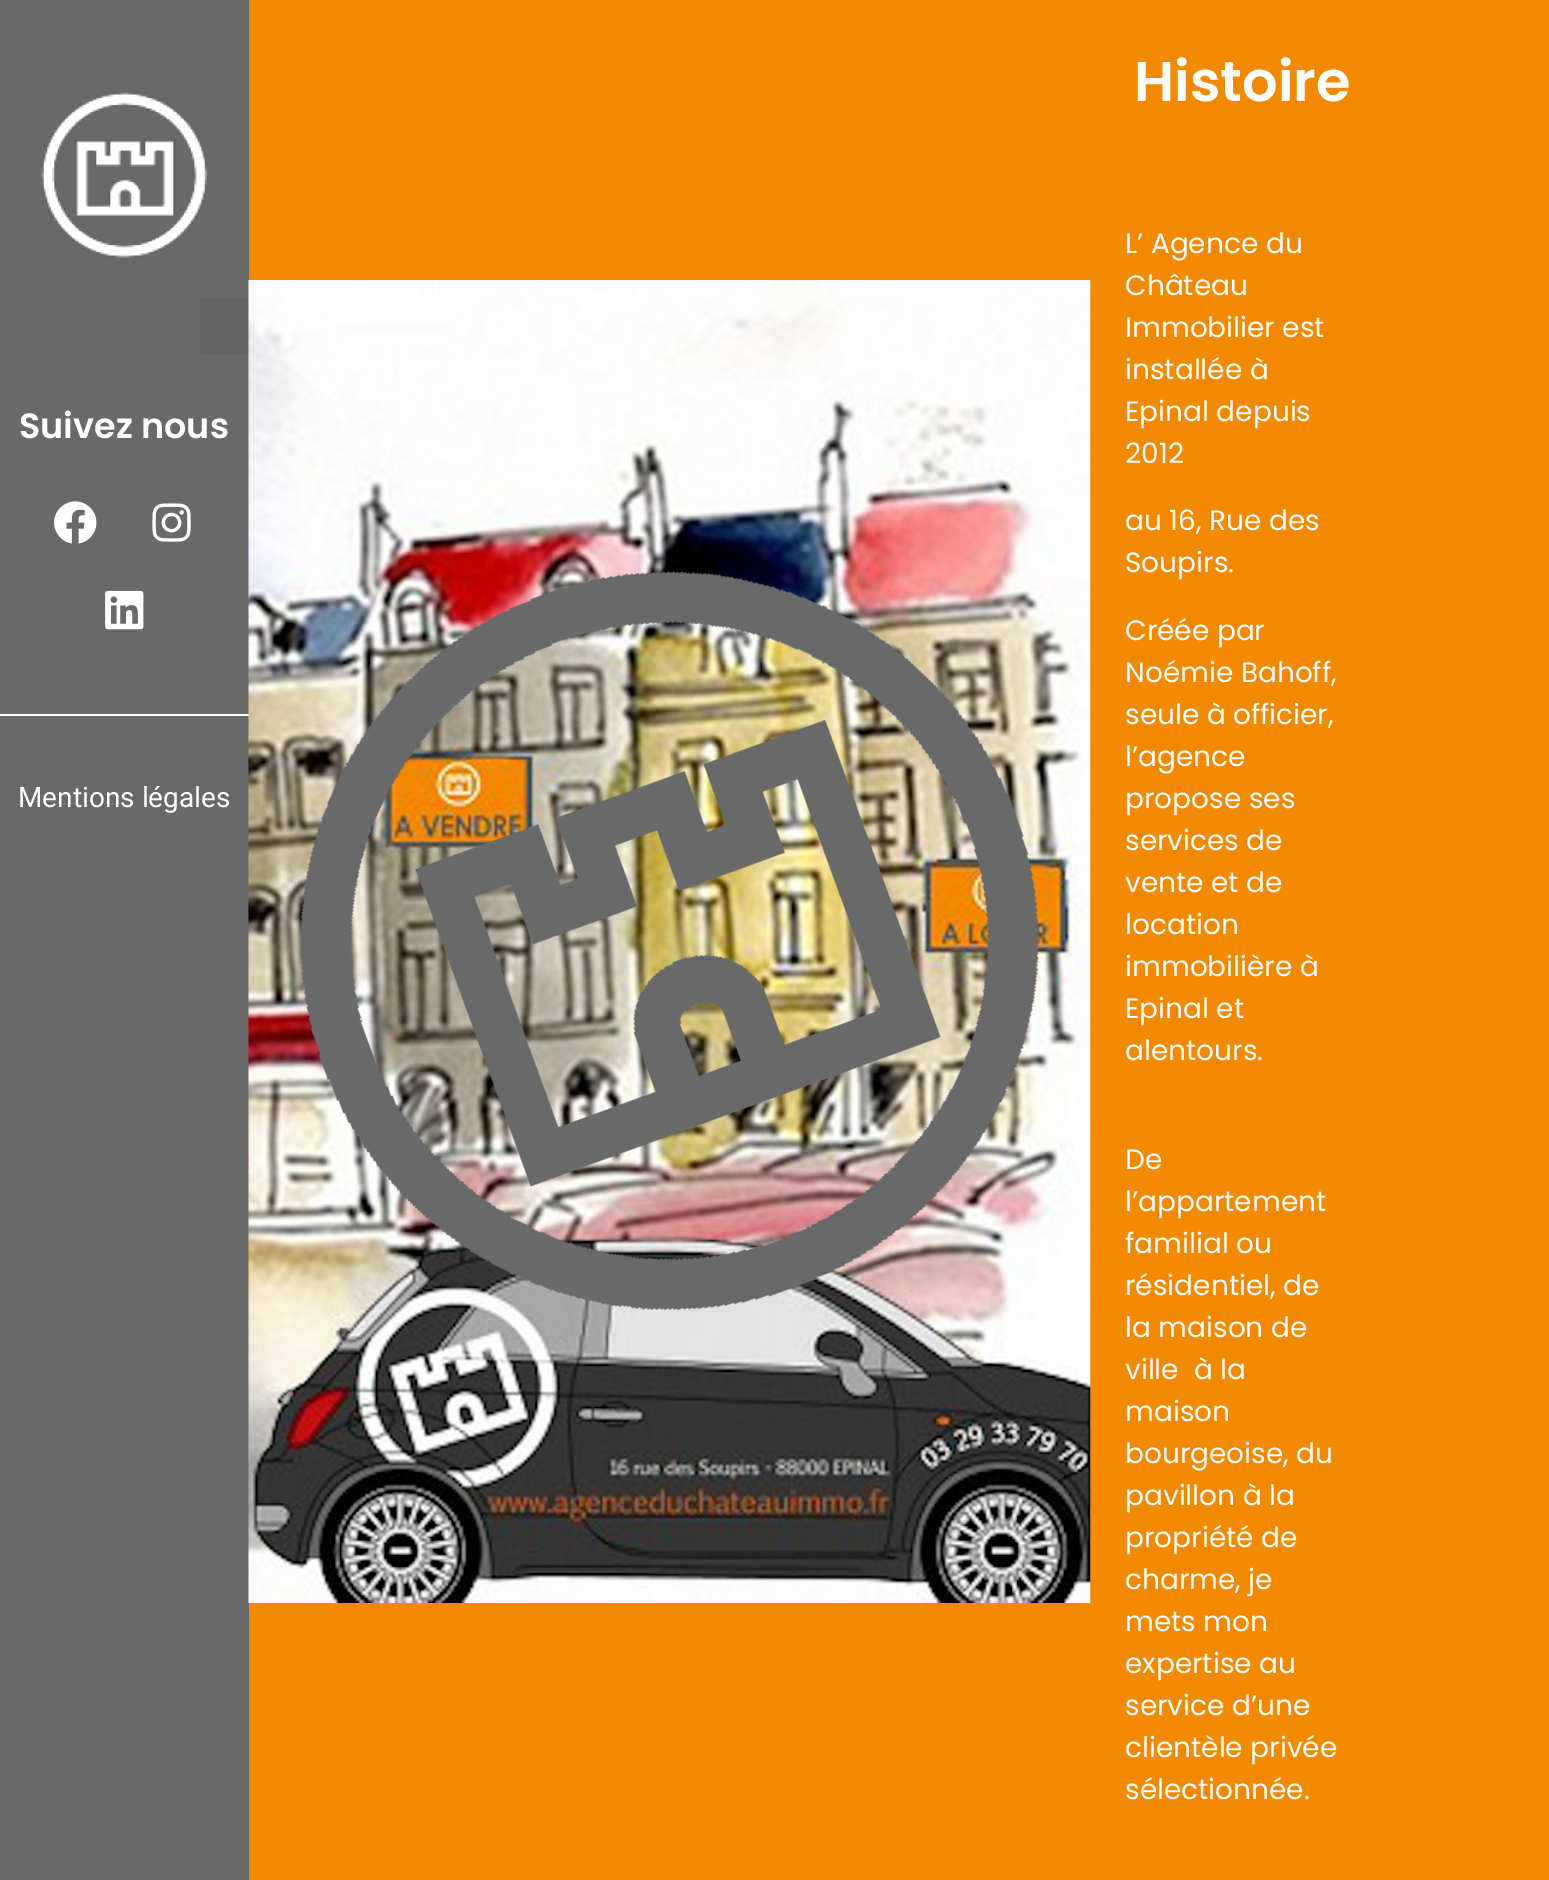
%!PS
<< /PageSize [1549 1880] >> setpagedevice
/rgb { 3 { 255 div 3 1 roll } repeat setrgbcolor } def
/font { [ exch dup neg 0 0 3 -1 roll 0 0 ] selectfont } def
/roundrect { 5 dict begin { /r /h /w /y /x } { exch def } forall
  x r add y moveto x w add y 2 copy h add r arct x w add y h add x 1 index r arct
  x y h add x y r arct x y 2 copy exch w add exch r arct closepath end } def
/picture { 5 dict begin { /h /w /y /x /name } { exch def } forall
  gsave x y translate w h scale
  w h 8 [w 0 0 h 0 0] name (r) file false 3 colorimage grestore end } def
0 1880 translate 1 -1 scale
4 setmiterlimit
105 105 105 rgb
0 0 1549 1880 rectfill
(img/1.rgb) 41 92 167 166 picture
100 100 100 rgb
200 298 49 57 5 roundrect fill
(img/2.rgb) 54 501 43 43 picture
(img/3.rgb) 152 503 39 39 picture
(img/4.rgb) 105 590 39 40 picture
255 255 255 rgb
0 714 249 2 rectfill
241 138 0 rgb
249 0 1300 1880 rectfill
(img/5.rgb) 248 280 843 1323 picture
(img/6.rgb) 300 571 739 740 picture
/Poppins-SemiBold 35 font
255 255 255 rgb
19 438 moveto (Suivez nous) show
/Roboto-Regular 28 font
18 807 moveto (Mentions légales) show
/Poppins-SemiBold 56 font
1134 101 moveto (Histoire) show
/Poppins-Regular 28 font
[
  [(L’ Agence du) 1125 253]
  [(Château) 1125 295]
  [(Immobilier est) 1125 337]
  [(installée à) 1125 379]
  [(Epinal depuis) 1125 421]
  [(2012) 1125 463]
  [(au 16, Rue des) 1125 530]
  [(Soupirs.) 1125 572]
  [(Créée par) 1125 640]
  [(Noémie Bahoff,) 1125 682]
  [(seule à officier,) 1125 724]
  [(l’agence) 1125 766]
  [(propose ses) 1125 808]
  [(services de) 1125 850]
  [(vente et de) 1125 892]
  [(location) 1125 934]
  [(immobilière à) 1125 976]
  [(Epinal et) 1125 1018]
  [(alentours.) 1125 1060]
  [(De) 1125 1169]
  [(l’appartement) 1125 1211]
  [(familial ou) 1125 1253]
  [(résidentiel, de) 1125 1295]
  [(la maison de) 1125 1337]
  [(ville  à la) 1125 1379]
  [(maison) 1125 1421]
  [(bourgeoise, du) 1125 1463]
  [(pavillon à la) 1125 1505]
  [(propriété de) 1125 1547]
  [(charme, je) 1125 1589]
  [(mets mon) 1125 1631]
  [(expertise au) 1125 1673]
  [(service d’une) 1125 1715]
  [(clientèle privée) 1125 1757]
  [(sélectionnée.) 1125 1799]
] { aload pop moveto show } forall
showpage
